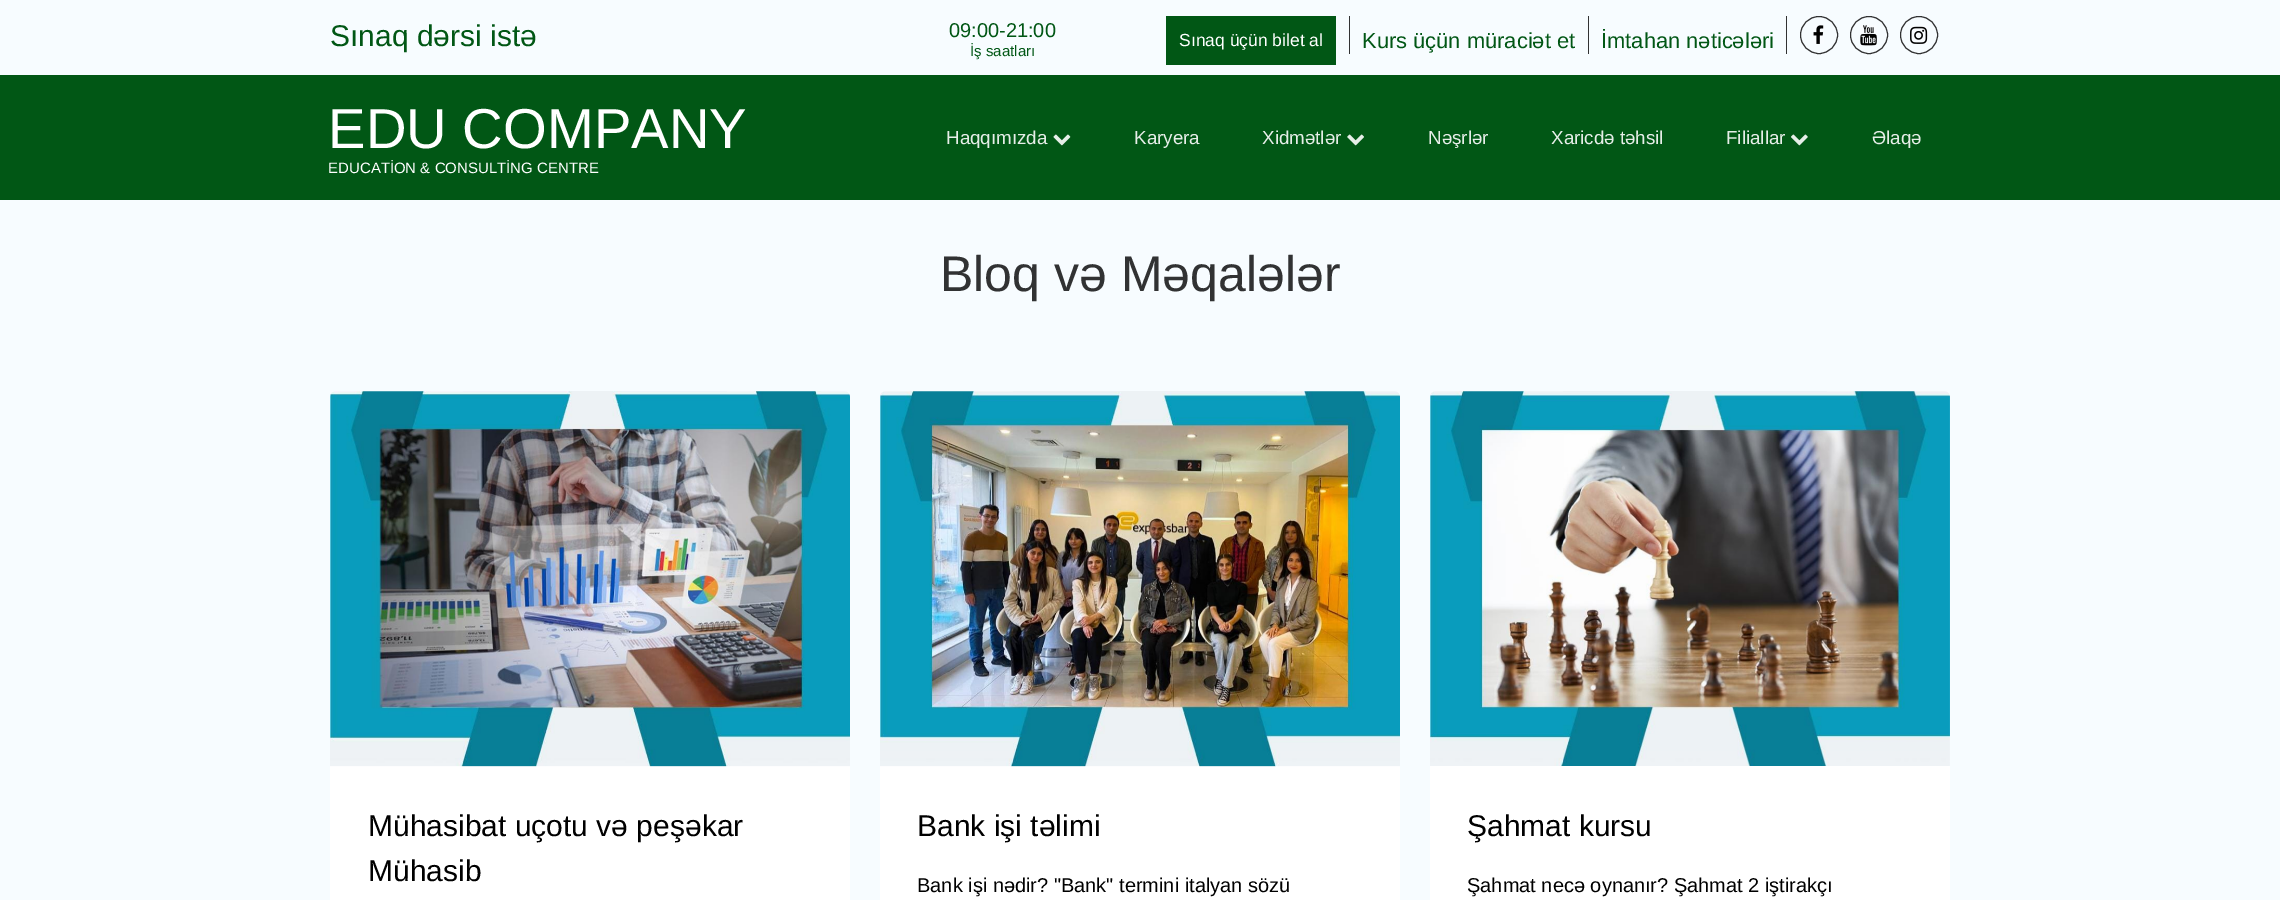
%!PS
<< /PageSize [2280 900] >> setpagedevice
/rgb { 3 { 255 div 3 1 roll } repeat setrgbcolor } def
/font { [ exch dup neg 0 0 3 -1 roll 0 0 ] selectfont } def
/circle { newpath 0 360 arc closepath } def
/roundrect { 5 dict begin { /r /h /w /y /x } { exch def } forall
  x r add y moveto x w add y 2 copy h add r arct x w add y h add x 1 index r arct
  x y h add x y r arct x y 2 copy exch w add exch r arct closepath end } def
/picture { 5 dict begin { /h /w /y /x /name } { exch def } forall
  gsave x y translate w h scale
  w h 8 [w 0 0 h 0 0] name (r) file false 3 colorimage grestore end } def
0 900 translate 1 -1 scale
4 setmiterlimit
247 252 255 rgb
0 0 2280 900 rectfill
[
  [1166 16 170 49 1 87 21]
  [1349 16 1 38 50 50 51]
  [1588 16 1 38 50 50 51]
  [1786 16 1 38 50 50 51]
] { aload pop rgb rectfill } forall
1819 35 18.5 circle stroke
(img/1.rgb) 1813 25 11 19 picture
1869 35 18.5 circle stroke
(img/2.rgb) 1860 25 17 21 picture
1919 35 18.5 circle stroke
(img/3.rgb) 1910 26 18 18 picture
1 87 21 rgb
0 75 2280 125 rectfill
(img/4.rgb) 1053 134 18 12 picture
(img/5.rgb) 1347 134 17 12 picture
(img/6.rgb) 1791 134 17 12 picture
255 255 255 rgb
330 391 520 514 5 roundrect fill
(img/7.rgb) 330 391 520 376 picture
880 391 520 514 5 roundrect fill
(img/8.rgb) 880 391 520 376 picture
1430 391 520 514 5 roundrect fill
(img/9.rgb) 1430 391 520 375 picture
/LiberationSans-Regular 30 font
1 87 21 rgb
330 46 moveto (Sınaq dərsi istə) show
/LiberationSans-Regular 20 font
949 37 moveto (09:00-21:00) show
/LiberationSans-Regular 15 font
970 56 moveto (İş saatları) show
/LiberationSans-Regular 17.5 font
255 255 255 rgb
1179 46 moveto (Sınaq üçün bilet al) show
/LiberationSans-Regular 21.9 font
1 87 21 rgb
1362 48 moveto (Kurs üçün müraciət et) show
1601 48 moveto (İmtahan nəticələri) show
/LiberationSans-Regular 56.25 font
255 255 255 rgb
328 148 moveto (EDU COMPANY) show
/LiberationSans-Regular 15 font
328 173 moveto (EDUCATİON & CONSULTİNG CENTRE) show
/LiberationSans-Regular 18.75 font
230 238 232 rgb
[
  [(Haqqımızda) 946 144]
  [(Karyera) 1134 144]
  [(Xidmətlər) 1262 144]
  [(Nəşrlər) 1428 144]
  [(Xaricdə təhsil) 1551 144]
  [(Filiallar) 1726 144]
  [(Əlaqə) 1872 144]
] { aload pop moveto show } forall
/LiberationSans-Regular 50 font
49 50 51 rgb
940 291 moveto (Bloq və Məqalələr) show
/LiberationSans-Regular 30 font
0 0 0 rgb
[
  [(Mühasibat uçotu və peşəkar) 368 836]
  [(Mühasib) 368 881]
  [(Bank işi təlimi) 917 836]
] { aload pop moveto show } forall
/LiberationSans-Regular 20 font
917 892 moveto (Bank işi nədir? "Bank" termini italyan sözü) show
/LiberationSans-Regular 30 font
1467 836 moveto (Şahmat kursu) show
/LiberationSans-Regular 20 font
1467 892 moveto (Şahmat necə oynanır? Şahmat 2 iştirakçı) show
showpage
